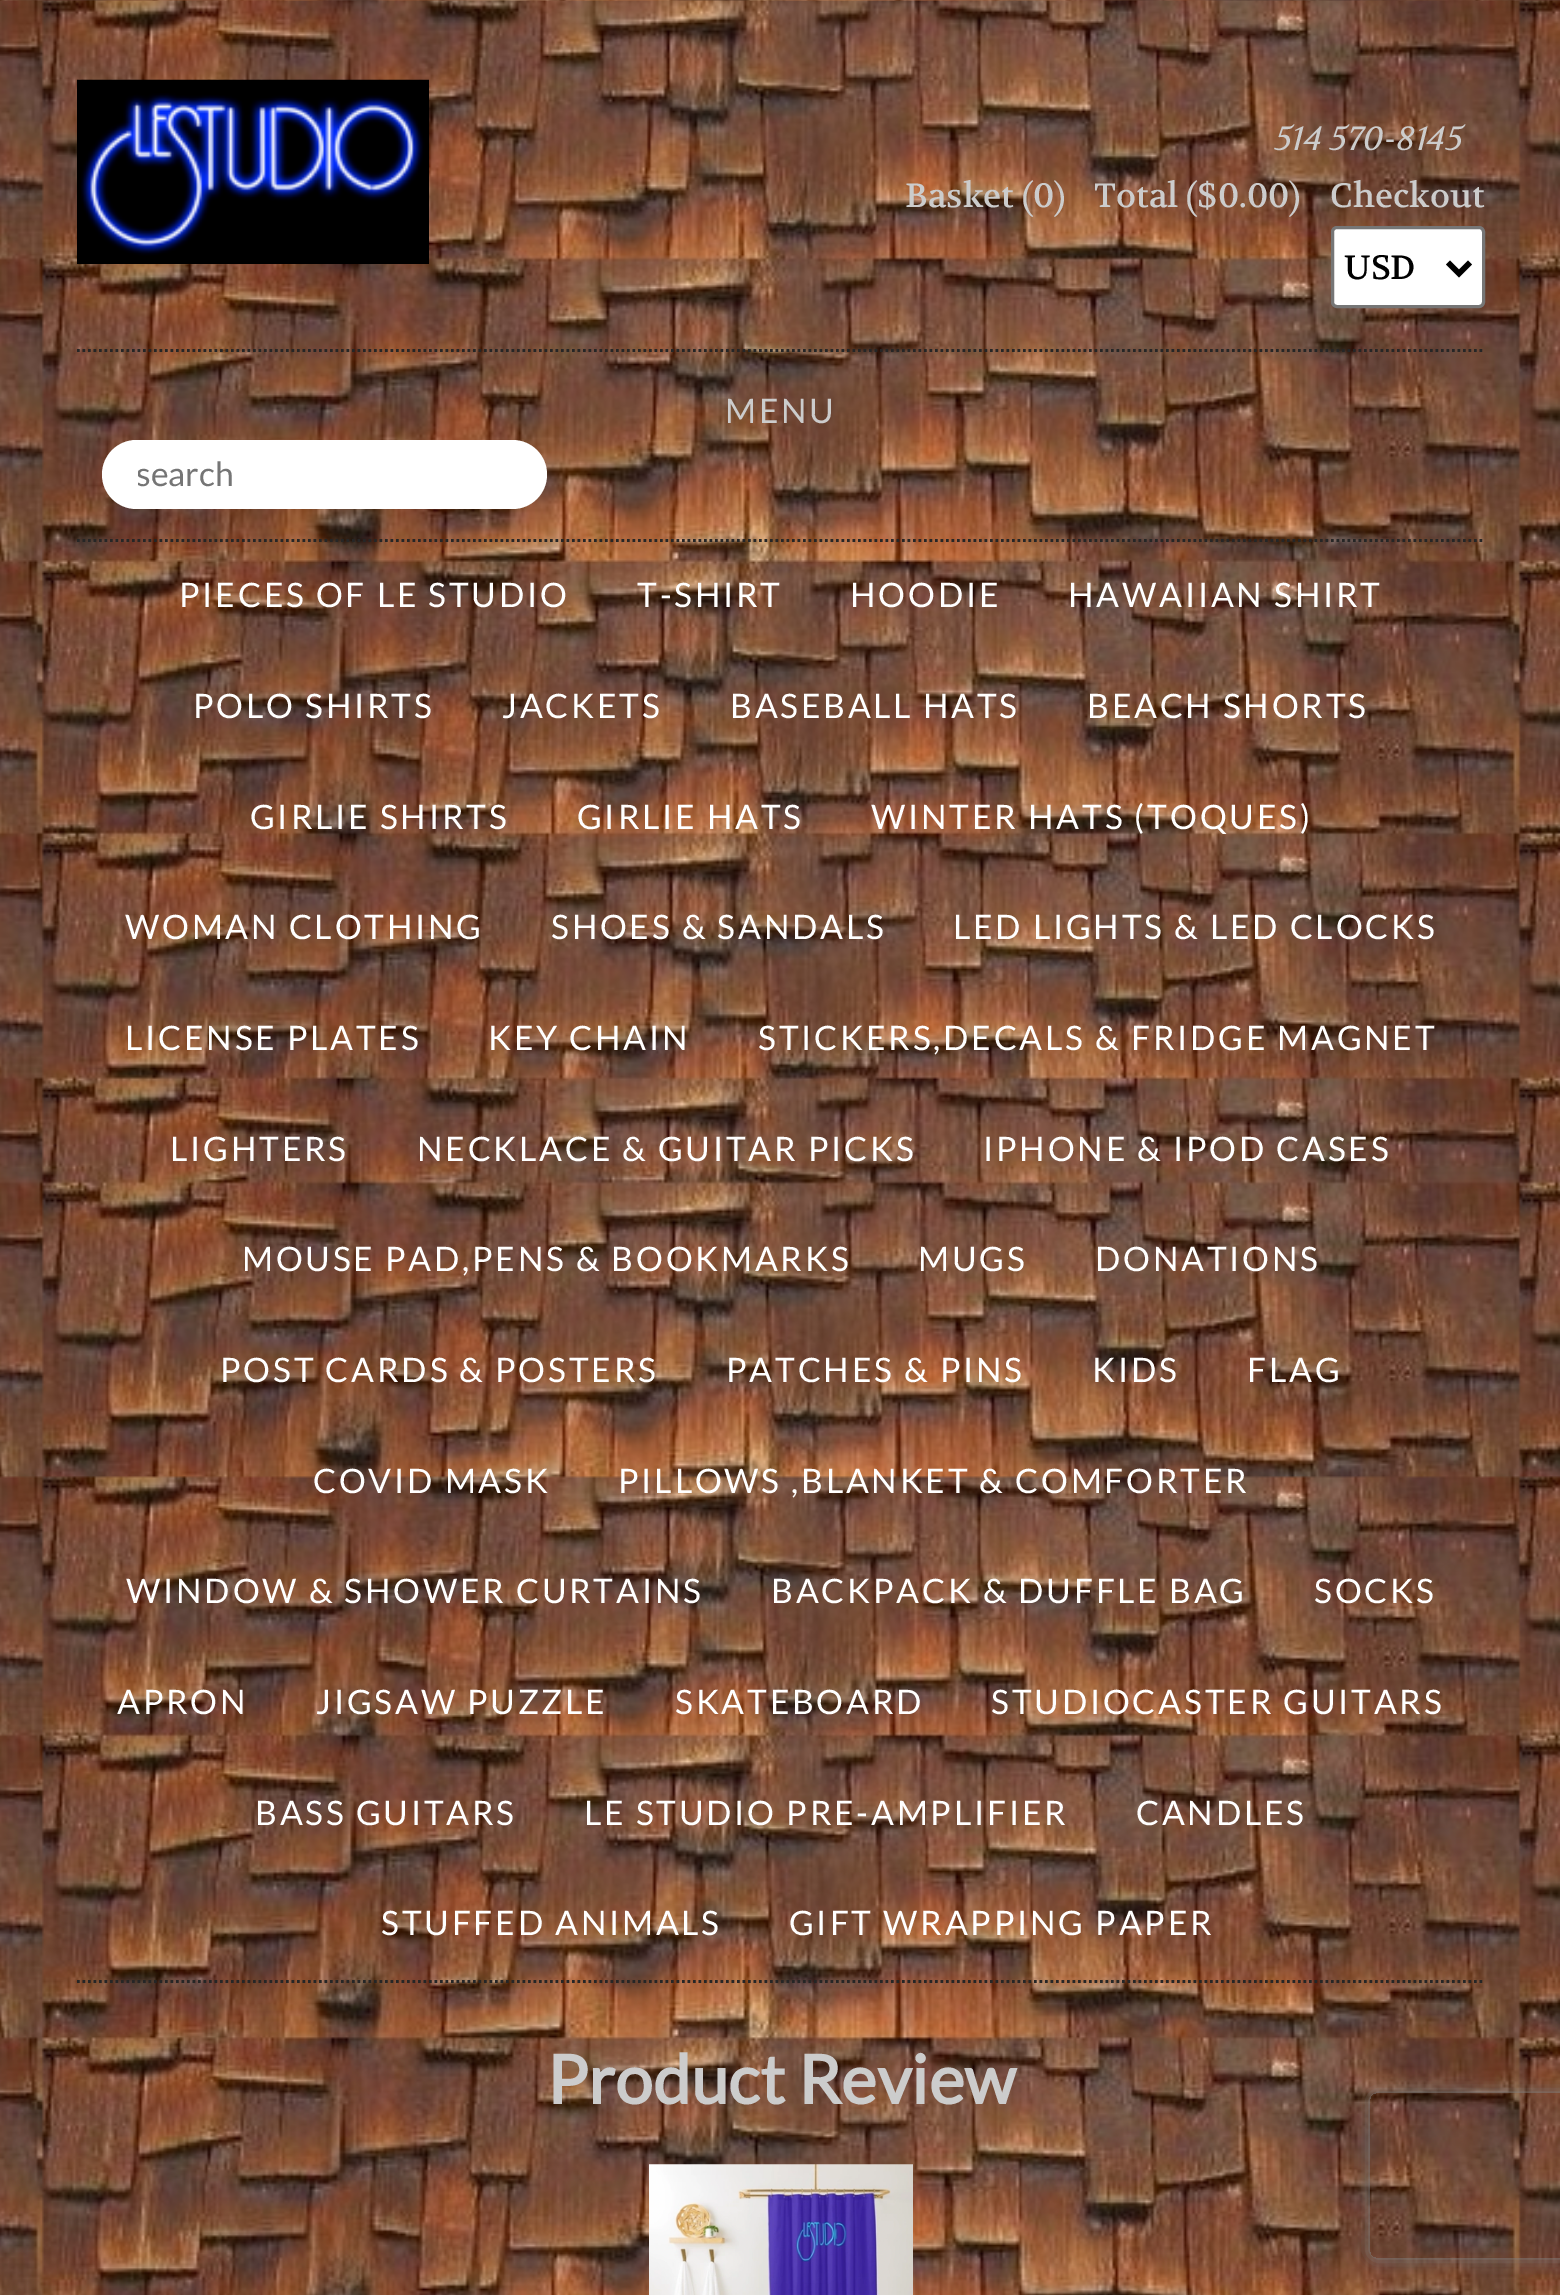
%!PS
<< /PageSize [1560 2295] /PageUsesTransparency true >> setpagedevice
/rgb { 3 { 255 div 3 1 roll } repeat setrgbcolor } def
/font { [ exch dup neg 0 0 3 -1 roll 0 0 ] selectfont } def
/alpha { dup .setfillconstantalpha .setstrokeconstantalpha } def
/roundrect { 5 dict begin { /r /h /w /y /x } { exch def } forall
  x r add y moveto x w add y 2 copy h add r arct x w add y h add x 1 index r arct
  x y h add x y r arct x y 2 copy exch w add exch r arct closepath end } def
/shadow { 12 dict begin { /a /b /q /h /w /y /x } { exch def } forall gsave /was 0 def
  9 -2 -9 { dup b mul 4 div /e exch def 1 sub .425 mul 2.718 exch exp 1 add a .99 .min exch div /now exch def
    1 1 now sub 1 was sub div sub alpha /was now def
    w h .min e 2 mul add 0 gt { x e sub y e sub w e 2 mul add h e 2 mul add
      q e add b .6 mul add w h .min 2 div e add .min 0 .max roundrect fill } if } for grestore end } def
/picture { 5 dict begin { /h /w /y /x /name } { exch def } forall
  gsave x y translate w h scale
  w h 8 [w 0 0 h 0 0] name (r) file false 3 colorimage grestore end } def
0 .pushpdf14devicefilter
0 2295 translate 1 -1 scale
4 setmiterlimit
255 255 255 rgb
0 0 1560 2295 rectfill
(img/1.rgb) 0 0 1560 2295 picture
(img/2.rgb) 77 79 352 185 picture
1332.5 227.5 151 79 4.5 roundrect gsave fill grestore
118 118 118 rgb
3 setlinewidth
stroke
0 0 0 rgb
5.5 setlinewidth
1448 262.5 moveto 1459 273.5 lineto 1470 262.5 lineto stroke
38 38 38 rgb
2.8 setlinewidth
[2.75 2.75] 0 setdash
77 350.5 moveto 1485 350.5 lineto stroke
77 540.5 moveto 1485 540.5 lineto stroke
255 255 255 rgb
102 440 445 69 34.5 roundrect fill
38 38 38 rgb
77 1981.5 moveto 1485 1981.5 lineto stroke
(img/3.rgb) 649 2164 264 131 picture
gsave
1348 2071 moveto 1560 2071 lineto 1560 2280 lineto 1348 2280 lineto closepath 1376 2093 moveto 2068 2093 lineto 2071.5 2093 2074 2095.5 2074 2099 curveto 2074 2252 lineto 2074 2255.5 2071.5 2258 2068 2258 curveto 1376 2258 lineto 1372.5 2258 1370 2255.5 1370 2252 curveto 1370 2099 lineto 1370 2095.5 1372.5 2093 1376 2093 curveto closepath eoclip newpath
128 128 128 rgb
1370 2093 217 165 6 7 1 shadow
grestore
/Volkhov-Italic 33.7 font
204 204 204 rgb
1275 150 moveto (514 570-8145) show
/Volkhov-Regular 33.7 font
[
  [(Basket \(0\)) 905 207]
  [(Total \($0.00\)) 1094 207]
  [(Checkout) 1330 207]
] { aload pop moveto show } forall
0 0 0 rgb
1344 279 moveto (USD) show
/Lato-Regular 33.7 font
204 204 204 rgb
725 423 moveto 2.75 0 (MENU) ashow
gsave
138 454 376 41 rectclip
117 117 117 rgb
136 486 moveto (search) show
grestore
255 255 255 rgb
179 607 moveto 2.75 0 (PIECES OF LE STUDIO) ashow
637 607 moveto 2.75 0 (T-SHIRT) ashow
850 607 moveto 2.75 0 (HOODIE) ashow
1068 607 moveto 2.75 0 (HAWAIIAN SHIRT) ashow
193 718 moveto 2.75 0 (POLO SHIRTS) ashow
502 718 moveto 2.75 0 (JACKETS) ashow
730 718 moveto 2.75 0 (BASEBALL HATS) ashow
1087 718 moveto 2.75 0 (BEACH SHORTS) ashow
250 829 moveto 2.75 0 (GIRLIE SHIRTS) ashow
577 829 moveto 2.75 0 (GIRLIE HATS) ashow
871 829 moveto 2.75 0 (WINTER HATS \(TOQUES\)) ashow
125 939 moveto 2.75 0 (WOMAN CLOTHING) ashow
551 939 moveto 2.75 0 (SHOES & SANDALS) ashow
953 939 moveto 2.75 0 (LED LIGHTS & LED CLOCKS) ashow
125 1050 moveto 2.75 0 (LICENSE PLATES) ashow
488 1050 moveto 2.75 0 (KEY CHAIN) ashow
758 1050 moveto 2.75 0 (STICKERS,DECALS & FRIDGE MAGNET) ashow
170 1161 moveto 2.75 0 (LIGHTERS) ashow
417 1161 moveto 2.75 0 (NECKLACE & GUITAR PICKS) ashow
983 1161 moveto 2.75 0 (IPHONE & IPOD CASES) ashow
242 1271 moveto 2.75 0 (MOUSE PAD,PENS & BOOKMARKS) ashow
918 1271 moveto 2.75 0 (MUGS) ashow
1095 1271 moveto 2.75 0 (DONATIONS) ashow
220 1382 moveto 2.75 0 (POST CARDS & POSTERS) ashow
726 1382 moveto 2.75 0 (PATCHES & PINS) ashow
1092 1382 moveto 2.75 0 (KIDS) ashow
1247 1382 moveto 2.75 0 (FLAG) ashow
313 1493 moveto 2.75 0 (COVID MASK) ashow
618 1493 moveto 2.75 0 (PILLOWS ,BLANKET & COMFORTER) ashow
126 1603 moveto 2.75 0 (WINDOW & SHOWER CURTAINS) ashow
771 1603 moveto 2.75 0 (BACKPACK & DUFFLE BAG) ashow
1314 1603 moveto 2.75 0 (SOCKS) ashow
117 1714 moveto 2.75 0 (APRON) ashow
316 1714 moveto 2.75 0 (JIGSAW PUZZLE) ashow
675 1714 moveto 2.75 0 (SKATEBOARD) ashow
991 1714 moveto 2.75 0 (STUDIOCASTER GUITARS) ashow
255 1825 moveto 2.75 0 (BASS GUITARS) ashow
584 1825 moveto 2.75 0 (LE STUDIO PRE-AMPLIFIER) ashow
1136 1825 moveto 2.75 0 (CANDLES) ashow
381 1935 moveto 2.75 0 (STUFFED ANIMALS) ashow
789 1935 moveto 2.75 0 (GIFT WRAPPING PAPER) ashow
/Lato-Bold 67.5 font
204 204 204 rgb
547 2104 moveto (Product Review) show
.poppdf14devicefilter showpage
